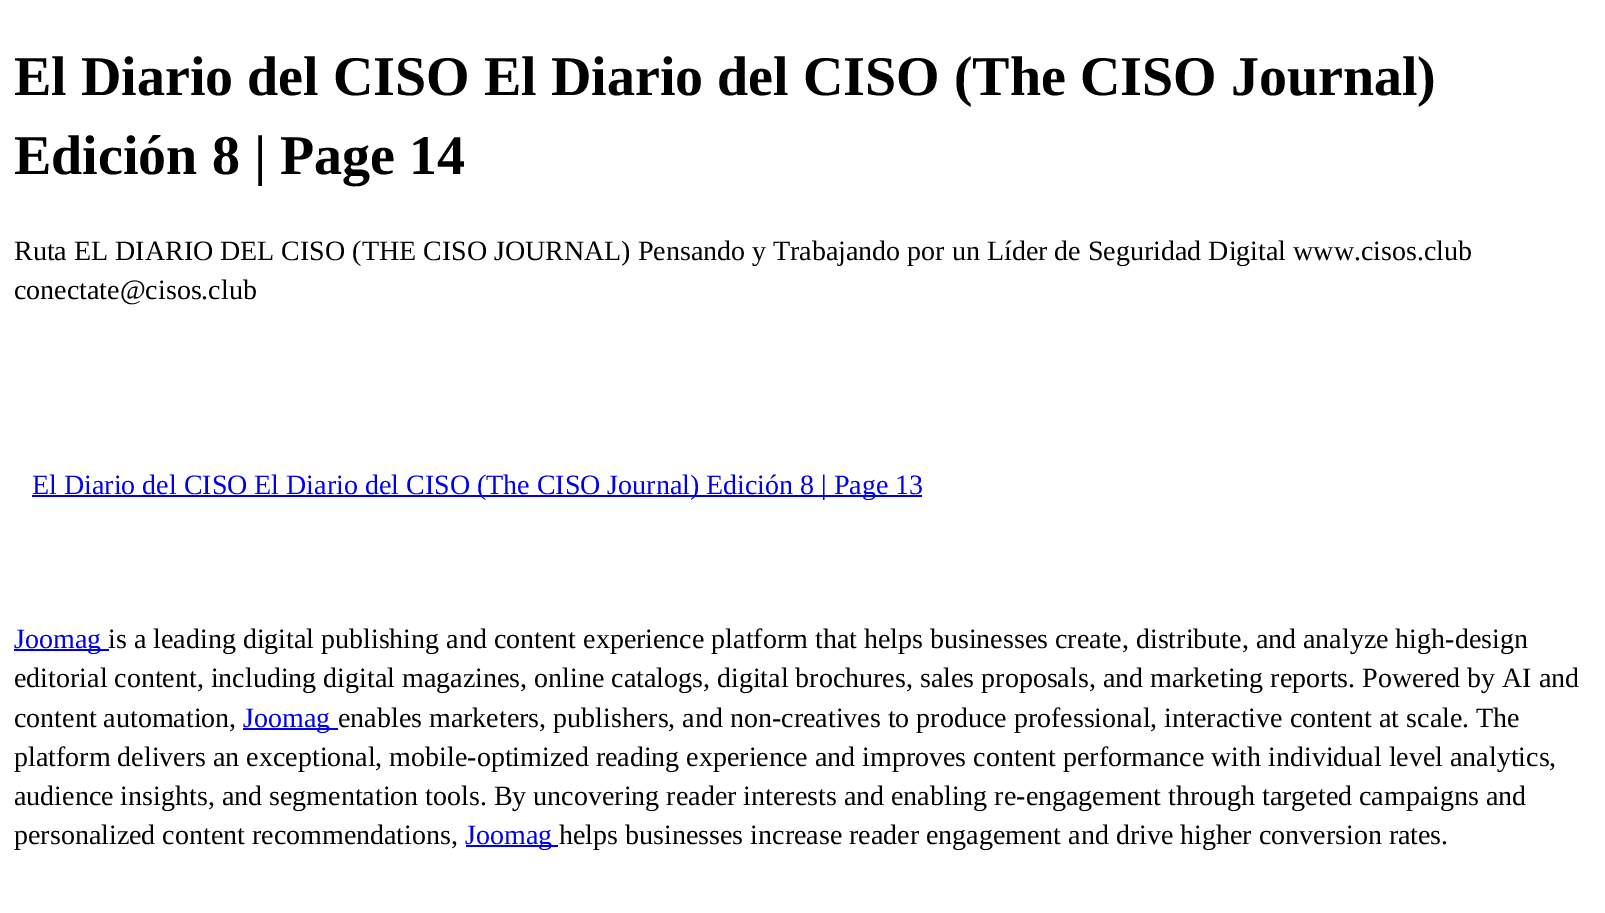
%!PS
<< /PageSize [1605 913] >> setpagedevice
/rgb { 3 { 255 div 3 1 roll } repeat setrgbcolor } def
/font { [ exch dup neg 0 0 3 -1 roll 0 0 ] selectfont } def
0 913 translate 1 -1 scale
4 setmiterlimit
255 255 255 rgb
0 0 1605 913 rectfill
[
  [32 495 890 2 0 0 238]
  [14 649 95 2 0 0 238]
  [243 728 95 2 0 0 238]
  [466 845 92 2 0 0 238]
] { aload pop rgb rectfill } forall
/LiberationSerif-Bold 56 font
0 0 0 rgb
14 95 moveto (El Diario del CISO El Diario del CISO \(The CISO Journal\)) show
14 174 moveto (Edición 8 | Page 14) show
/LiberationSerif-Regular 28 font
14 260 moveto (Ruta EL DIARIO DEL CISO \(THE CISO JOURNAL\) Pensando y Trabajando por un Líder de Seguridad Digital www.cisos.club) show
14 299 moveto (conectate@cisos.club) show
0 0 238 rgb
32 494 moveto (El Diario del CISO El Diario del CISO \(The CISO Journal\) Edición 8 | Page 13) show
14 648 moveto (Joomag) show
0 0 0 rgb
[
  [(is a leading digital publishing and content experience platform that helps businesses create, distribute, and analyze high-design) 108 648]
  [(editorial content, including digital magazines, online catalogs, digital brochures, sales proposals, and marketing reports. Powered by AI and) 14 687]
  [(content automation,) 14 727]
] { aload pop moveto show } forall
0 0 238 rgb
243 727 moveto (Joomag) show
0 0 0 rgb
[
  [(enables marketers, publishers, and non-creatives to produce professional, interactive content at scale. The) 338 727]
  [(platform delivers an exceptional, mobile-optimized reading experience and improves content performance with individual level analytics,) 14 766]
  [(audience insights, and segmentation tools. By uncovering reader interests and enabling re-engagement through targeted campaigns and) 14 805]
  [(personalized content recommendations,) 14 844]
] { aload pop moveto show } forall
0 0 238 rgb
465 844 moveto (Joomag) show
0 0 0 rgb
559 844 moveto (helps businesses increase reader engagement and drive higher conversion rates.) show
showpage
